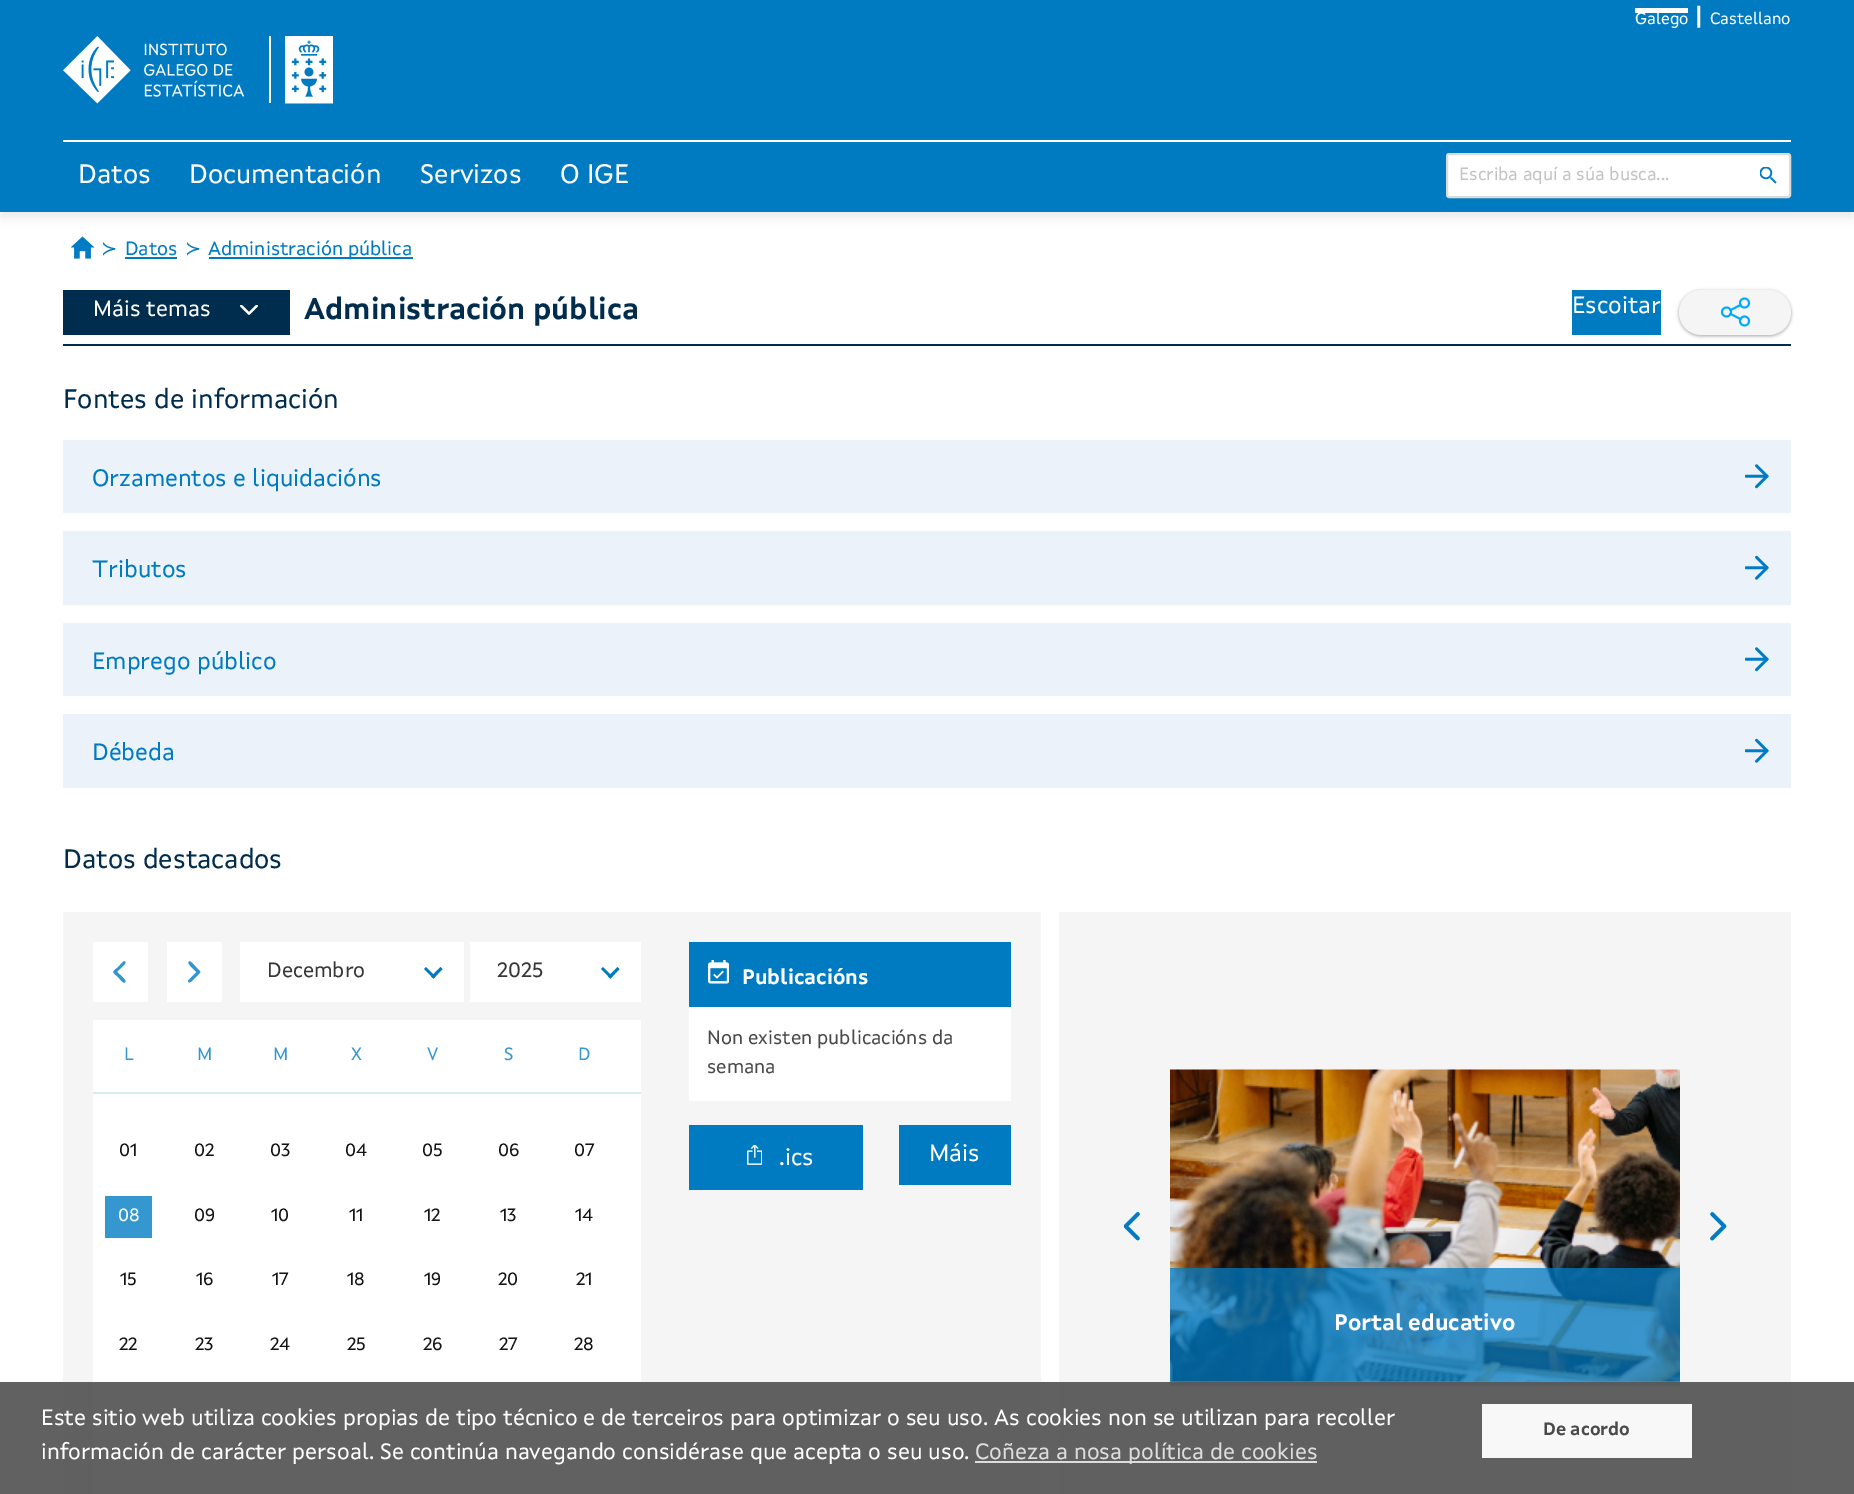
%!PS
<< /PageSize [1854 1494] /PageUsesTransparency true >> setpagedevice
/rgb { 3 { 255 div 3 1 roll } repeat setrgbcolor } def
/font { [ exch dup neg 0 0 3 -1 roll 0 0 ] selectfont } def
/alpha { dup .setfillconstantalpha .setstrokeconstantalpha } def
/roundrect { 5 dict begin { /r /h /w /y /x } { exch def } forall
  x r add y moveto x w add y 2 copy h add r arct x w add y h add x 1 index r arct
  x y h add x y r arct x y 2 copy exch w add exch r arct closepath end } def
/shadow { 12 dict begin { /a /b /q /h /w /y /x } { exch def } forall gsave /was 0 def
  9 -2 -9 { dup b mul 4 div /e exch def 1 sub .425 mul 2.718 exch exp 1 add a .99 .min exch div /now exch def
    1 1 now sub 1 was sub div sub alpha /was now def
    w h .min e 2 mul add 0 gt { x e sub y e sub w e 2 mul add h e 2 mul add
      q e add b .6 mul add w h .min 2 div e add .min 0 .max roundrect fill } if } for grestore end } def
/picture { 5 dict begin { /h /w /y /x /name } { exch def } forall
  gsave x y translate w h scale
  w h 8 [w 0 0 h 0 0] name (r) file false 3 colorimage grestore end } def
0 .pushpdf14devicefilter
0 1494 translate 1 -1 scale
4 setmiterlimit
255 255 255 rgb
0 0 1854 1494 rectfill
0 123 194 rgb
0 0 1854 140 rectfill
255 255 255 rgb
1635 8 53 5 rectfill
(img/1.rgb) 63 36 270 68 picture
0 0 0 rgb
0 146 1854 72 0 4.5 0.07 shadow
0 123 194 rgb
0 140 1854 72 rectfill
255 255 255 rgb
63 140 1728 2 rectfill
1447 154 343 43 2 roundrect gsave fill grestore
219 219 219 rgb
2 setlinewidth
stroke
(img/2.rgb) 1760 167 17 17 picture
(img/3.rgb) 71 236 24 23 picture
[
  [125 257 52 2 0 123 194]
  [209 257 204 2 0 123 194]
  [63 290 227 45 0 45 77]
] { aload pop rgb rectfill } forall
(img/4.rgb) 240 305 18 10 picture
0 123 194 rgb
1572 290 89 45 rectfill
0 0 0 rgb
1679 291 112 45 22.5 1.5 0.24 shadow
1679 291 112 45 22.5 2 0.12 shadow
245 245 245 rgb
1701.5 290 moveto 1736 290 lineto 1736 335 lineto 1701.5 335 lineto 1689 335 1679 325 1679 312.5 curveto 1679 300 1689 290 1701.5 290 curveto closepath fill
1736 290 moveto 1768.5 290 lineto 1781 290 1791 300 1791 312.5 curveto 1791 325 1781 335 1768.5 335 curveto 1736 335 lineto closepath fill
(img/5.rgb) 1720 297 31 30 picture
0 45 77 rgb
63 344 1728 2 rectfill
235 242 250 rgb
63 440 1728 73 rectfill
(img/6.rgb) 1745 464 24 25 picture
63 531 1728 74 rectfill
(img/7.rgb) 1745 555 24 25 picture
63 623 1728 73 rectfill
(img/6.rgb) 1745 647 24 25 picture
63 714 1728 74 rectfill
(img/7.rgb) 1745 738 24 25 picture
245 245 245 rgb
63 912 978 582 rectfill
255 255 255 rgb
93 942 55 60 rectfill
51 149 207 rgb
117 972 moveto 118.5 973.5 126 979.5 125.5 981.5 curveto 124.5 985.5 119 978 118.5 977.5 curveto 113.5 973 lineto 112.5 971 116 969 117 968 curveto 120 965 lineto 120 965 125 958.5 125.5 962.5 curveto 125 964 lineto closepath fill
255 255 255 rgb
167 942 55 60 rectfill
51 149 207 rgb
196.5 972 moveto 195 970.5 188 964.5 188.5 962.5 curveto 189 958.5 195 966 195.5 966.5 curveto 200 971 lineto 201 973 197.5 975 197 976 curveto 194 979 lineto 193.5 979 189 985 188 981 curveto 188.5 980 lineto closepath fill
255 255 255 rgb
240 942 224 60 rectfill
0 123 194 rgb
431 976.5 moveto 440.5 967 lineto 442.5 969 lineto 433.5 978.5 lineto closepath fill
424 969 moveto 426 967 lineto 435.5 976.5 lineto 433.5 978.5 lineto closepath fill
255 255 255 rgb
470 942 171 60 rectfill
0 123 194 rgb
608 976.5 moveto 617.5 967 lineto 619.5 969 lineto 610.5 978.5 lineto closepath fill
601 969 moveto 603 967 lineto 612.5 976.5 lineto 610.5 978.5 lineto closepath fill
[
  [93 1020 548 474 255 255 255]
  [93 1092 548 2 208 240 238]
  [105 1196 47 42 53 151 208]
  [689 942 322 65 0 123 194]
] { aload pop rgb rectfill } forall
(img/8.rgb) 708 960 21 24 picture
255 255 255 rgb
689 1007 322 94 rectfill
0 123 194 rgb
689 1125 174 65 rectfill
(img/9.rgb) 747 1145 15 20 picture
899 1125 112 60 rectfill
245 245 245 rgb
1059 912 732 582 rectfill
(img/10.rgb) 1124 1212 16 29 picture
(img/11.rgb) 1710 1212 17 29 picture
(img/12.rgb) 1170 1069 510 313 picture
0.75 alpha
[
  [1170 1268 510 118 0 123 196]
] { aload pop rgb rectfill } forall
0.95 alpha
[
  [0 1382 1854 112 88 88 88]
] { aload pop rgb rectfill } forall
1 alpha
[
  [975 1461 342 2 221 221 221]
  [1482 1404 210 54 248 248 248]
] { aload pop rgb rectfill } forall
/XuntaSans-Regular 16.5 font
255 255 255 rgb
1635 24 moveto (Galego) show
/XuntaSans-Bold 24 font
1695 24 moveto (|) show
/XuntaSans-Regular 16.5 font
1710 24 moveto (Castellano) show
/XuntaSans-Regular 27 font
[
  [(Datos) 78 183]
  [(Documentación) 189 183]
  [(Servizos) 420 183]
  [(O IGE) 560 183]
] { aload pop moveto show } forall
/XuntaSans-Regular 18 font
195 195 195 rgb
1459 180 moveto (Escriba aquí a súa busca...) show
/DejaVuSans-Regular 19.5 font
0 123 194 rgb
101 255 moveto (≻) show
/XuntaSans-Regular 19.5 font
125 255 moveto (Datos) show
/DejaVuSans-Regular 19.5 font
185 255 moveto (≻) show
/XuntaSans-Regular 19.5 font
208 255 moveto (Administración pública) show
/XuntaSans-Regular 22.5 font
255 255 255 rgb
93 316 moveto (Máis temas) show
/XuntaSans-Bold 30 font
0 45 77 rgb
304 319 moveto (Administración pública) show
/XuntaSans-Regular 24 font
255 255 255 rgb
1572 313 moveto (Escoitar) show
/XuntaSans-Regular 27 font
0 45 77 rgb
63 408 moveto (Fontes de información) show
/XuntaSans-Regular 24 font
0 123 194 rgb
[
  [(Orzamentos e liquidacións) 92 486]
  [(Tributos) 92 577]
  [(Emprego público) 92 669]
  [(Débeda) 92 760]
] { aload pop moveto show } forall
/XuntaSans-Regular 27 font
0 45 77 rgb
63 868 moveto (Datos destacados) show
/XuntaSans-Regular 21 font
54 54 54 rgb
267 977 moveto (Decembro) show
497 977 moveto (2025) show
/XuntaSans-Regular 18 font
53 151 208 rgb
[
  [(L) 124 1060]
  [(M) 197 1060]
  [(M) 273 1060]
  [(X) 351 1060]
  [(V) 427 1060]
  [(S) 504 1060]
  [(D) 578 1060]
] { aload pop moveto show } forall
20 20 20 rgb
[
  [(01) 119 1156]
  [(02) 194 1156]
  [(03) 270 1156]
  [(04) 345 1156]
  [(05) 422 1156]
  [(06) 498 1156]
  [(07) 574 1156]
] { aload pop moveto show } forall
255 255 255 rgb
118 1221 moveto (08) show
20 20 20 rgb
[
  [(09) 194 1221]
  [(10) 271 1221]
  [(11) 349 1221]
  [(12) 424 1221]
  [(13) 500 1221]
  [(14) 575 1221]
  [(15) 120 1285]
  [(16) 196 1285]
  [(17) 272 1285]
  [(18) 347 1285]
  [(19) 424 1285]
  [(20) 498 1285]
  [(21) 576 1285]
  [(22) 119 1350]
  [(23) 195 1350]
  [(24) 270 1350]
  [(25) 347 1350]
  [(26) 423 1350]
  [(27) 499 1350]
  [(28) 574 1350]
] { aload pop moveto show } forall
/XuntaSans-Bold 21 font
255 255 255 rgb
742 984 moveto (Publicacións) show
/XuntaSans-Regular 19.5 font
74 74 74 rgb
707 1044 moveto (Non existen publicacións da) show
707 1073 moveto (semana) show
/XuntaSans-Regular 24 font
255 255 255 rgb
779 1165 moveto (.ics) show
929 1161 moveto (Máis) show
/XuntaSans-Bold 22.5 font
1334 1330 moveto (Portal educativo) show
/XuntaSans-Regular 22.5 font
41 1425 moveto (Este sitio web utiliza cookies propias de tipo técnico e de terceiros para optimizar o seu uso. As cookies non se utilizan para recoller) show
41 1459 moveto (información de carácter persoal. Se continúa navegando considérase que acepta o seu uso.) show
221 221 221 rgb
975 1459 moveto (Coñeza a nosa política de cookies) show
/XuntaSans-Bold 18 font
74 74 74 rgb
1543 1435 moveto (De acordo) show
.poppdf14devicefilter showpage
